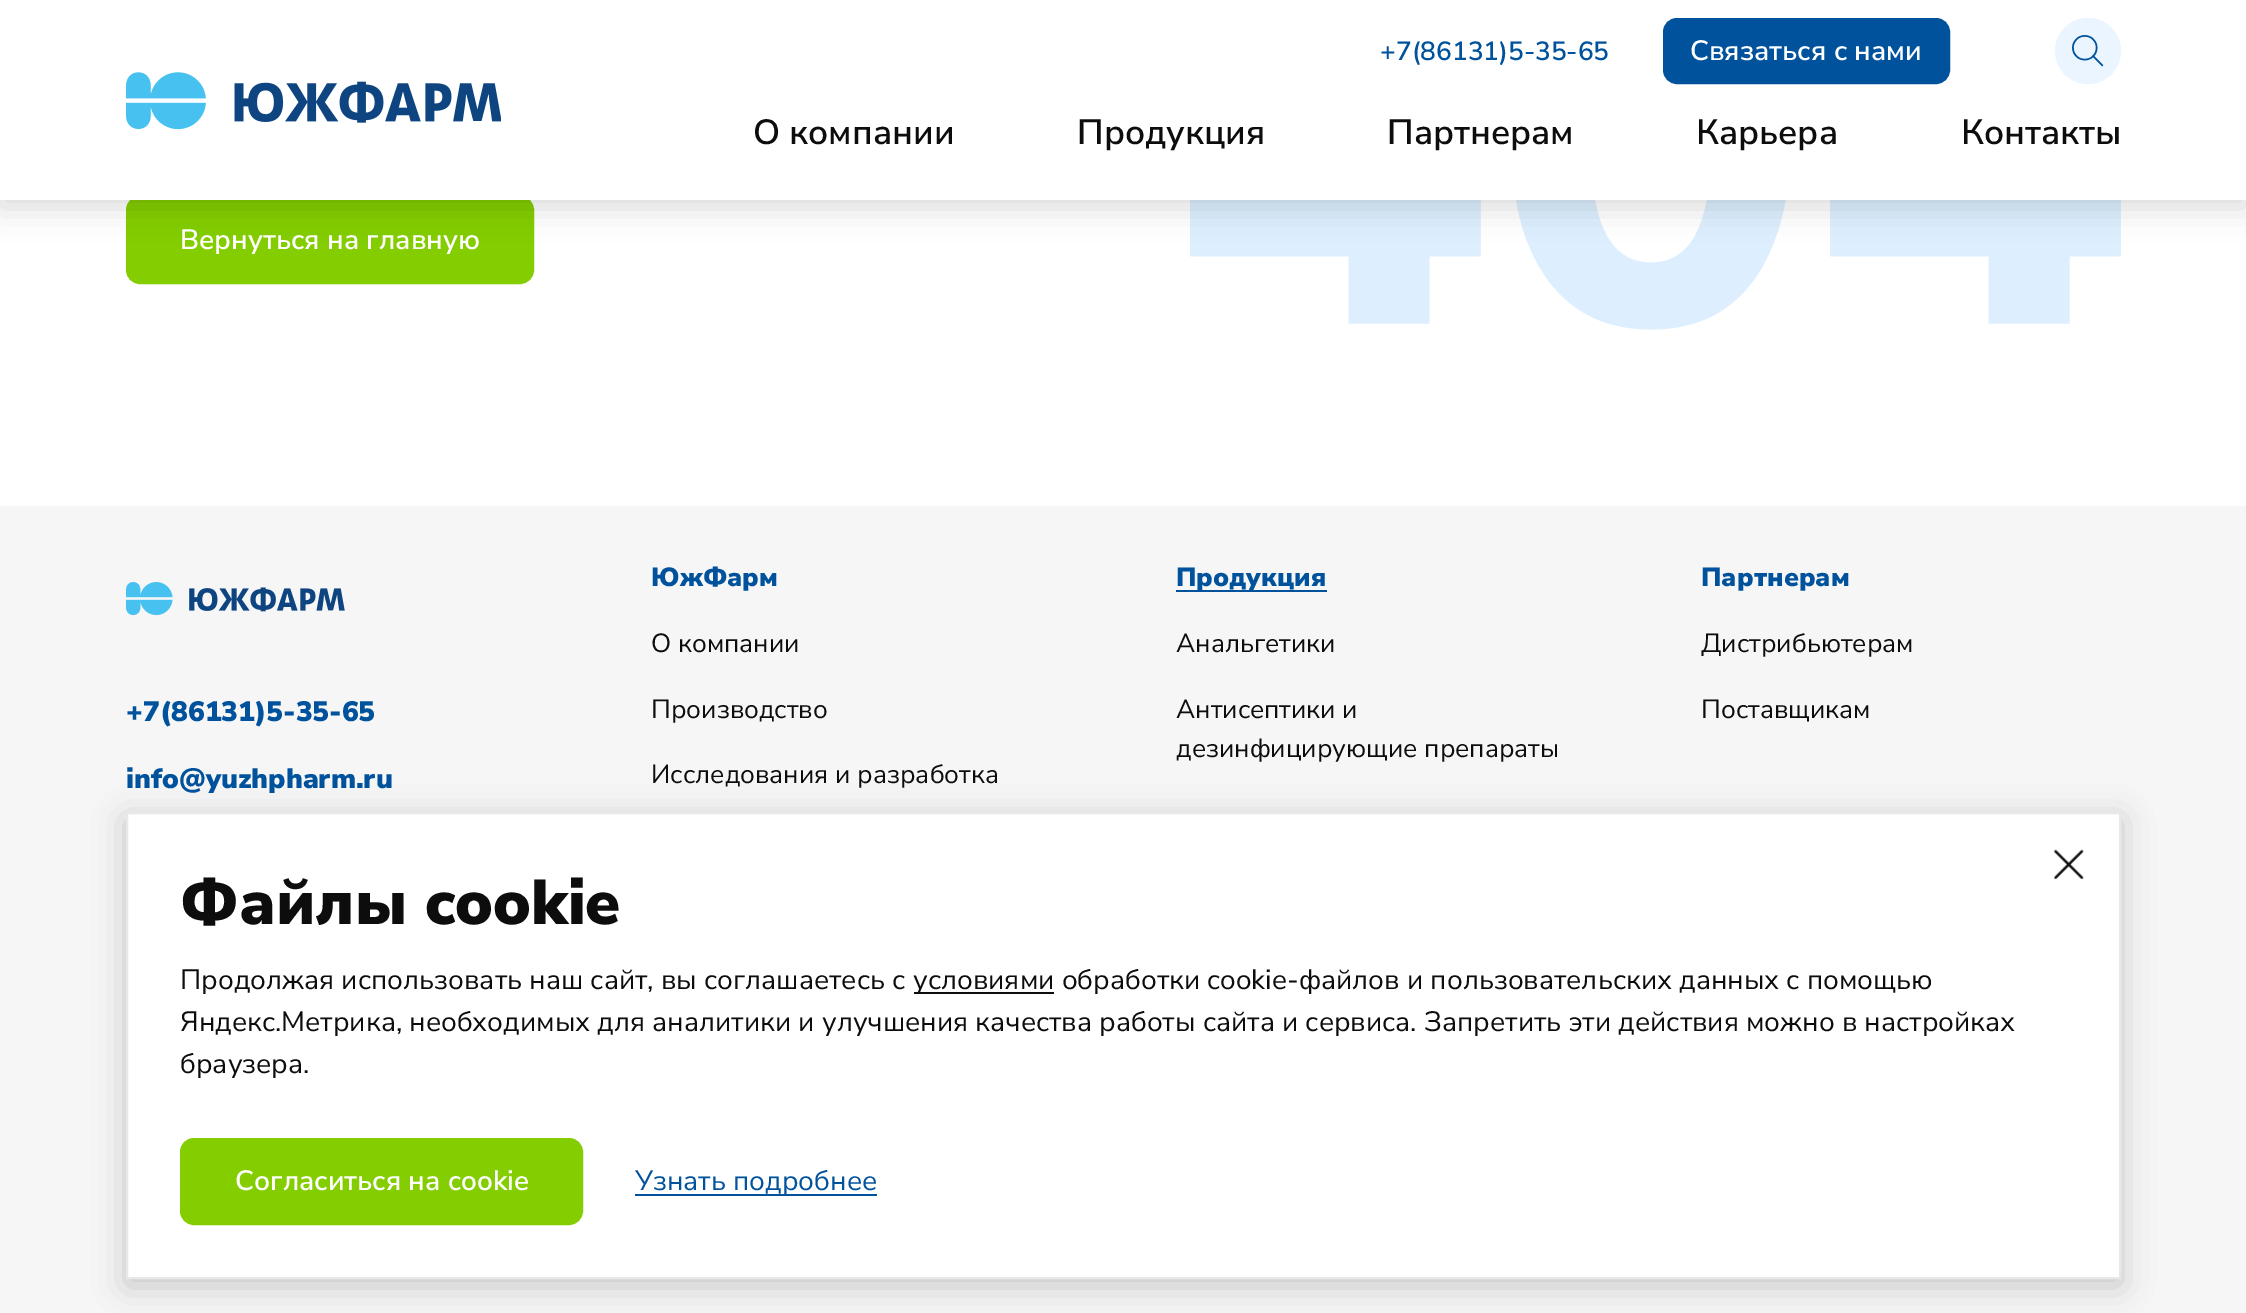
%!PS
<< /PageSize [2246 1313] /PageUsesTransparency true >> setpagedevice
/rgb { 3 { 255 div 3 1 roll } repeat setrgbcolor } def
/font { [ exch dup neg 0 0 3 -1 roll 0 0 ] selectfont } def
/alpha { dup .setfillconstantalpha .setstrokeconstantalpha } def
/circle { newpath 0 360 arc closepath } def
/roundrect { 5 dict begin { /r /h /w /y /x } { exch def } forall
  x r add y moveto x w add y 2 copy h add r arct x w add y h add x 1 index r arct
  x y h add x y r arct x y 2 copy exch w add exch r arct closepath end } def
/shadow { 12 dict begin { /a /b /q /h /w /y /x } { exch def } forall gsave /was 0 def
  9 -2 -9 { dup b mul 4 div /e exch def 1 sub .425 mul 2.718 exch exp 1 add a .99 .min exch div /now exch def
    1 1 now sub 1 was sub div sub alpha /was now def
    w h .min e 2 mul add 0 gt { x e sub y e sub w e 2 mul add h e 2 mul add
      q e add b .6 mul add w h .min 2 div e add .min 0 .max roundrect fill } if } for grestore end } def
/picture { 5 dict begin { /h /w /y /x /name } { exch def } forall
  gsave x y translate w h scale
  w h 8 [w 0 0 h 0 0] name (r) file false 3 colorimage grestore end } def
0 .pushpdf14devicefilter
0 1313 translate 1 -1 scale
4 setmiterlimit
255 255 255 rgb
0 0 2246 1313 rectfill
132 205 0 rgb
127 197 406 86 13 roundrect gsave fill grestore
2 setlinewidth
stroke
(img/3.rgb) 1190 200 931 130 picture
0 0 0 rgb
0 7 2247 200 0 16 0.15 shadow
255 255 255 rgb
0 0 2246 200 rectfill
(img/1.rgb) 126 72 375 58 picture
0 82 156 rgb
1664 19 285 64 13 roundrect gsave fill grestore
stroke
235 245 255 rgb
2088 51 33 circle fill
(img/2.rgb) 2072 35 32 32 picture
246 246 246 rgb
0 506 2246 807 rectfill
0 82 156 rgb
1176 590 151 2 rectfill
(img/4.rgb) 126 582 219 34 picture
0 0 0 rgb
126 819 1995 467 0 16 0.2 shadow
255 255 255 rgb
127 813 moveto 2120 813 lineto 2120 1278 lineto 127 1278 lineto closepath gsave fill grestore
232 232 232 rgb
stroke
(img/5.rgb) 2053 849 31 31 picture
13 13 13 rgb
914 992 140 2 rectfill
132 205 0 rgb
181 1139 401 85 13 roundrect gsave fill grestore
stroke
0 82 156 rgb
635 1194 242 2 rectfill
/NunitoSans-SemiBold 26.25 font
1380 60 moveto (+7\(86131\)5-35-65) show
/NunitoSans-SemiBold 28 font
255 255 255 rgb
1690 60 moveto (Связаться с нами) show
/NunitoSans-SemiBold 35 font
13 13 13 rgb
[
  [(О компании) 753 144]
  [(Продукция) 1077 144]
  [(Партнерам) 1387 144]
  [(Карьера) 1696 144]
  [(Контакты) 1961 144]
] { aload pop moveto show } forall
/NunitoSans-SemiBold 28 font
255 255 255 rgb
180 249 moveto (Вернуться на главную) show
/NunitoSans-Black 26.25 font
0 82 156 rgb
651 586 moveto (ЮжФарм) show
/NunitoSans-Regular 26.25 font
13 13 13 rgb
[
  [(О компании) 651 652]
  [(Производство) 651 718]
  [(Исследования и разработка) 651 783]
] { aload pop moveto show } forall
/NunitoSans-Black 26.25 font
0 82 156 rgb
1176 586 moveto (Продукция) show
/NunitoSans-Regular 26.25 font
13 13 13 rgb
[
  [(Анальгетики) 1176 652]
  [(Антисептики и) 1176 718]
  [(дезинфицирующие препараты) 1176 757]
] { aload pop moveto show } forall
/NunitoSans-Black 26.25 font
0 82 156 rgb
1701 586 moveto (Партнерам) show
/NunitoSans-Regular 26.25 font
13 13 13 rgb
1701 652 moveto (Дистрибьютерам) show
1701 718 moveto (Поставщикам) show
/NunitoSans-Black 28 font
0 82 156 rgb
126 721 moveto (+7\(86131\)5-35-65) show
126 788 moveto (info@yuzhpharm.ru) show
/NunitoSans-Black 63 font
13 13 13 rgb
180 924 moveto (Файлы cookie) show
/NunitoSans-Regular 28 font
[
  [(Продолжая использовать наш сайт, вы соглашаетесь с) 180 989]
  [(условиями обработки cookie-файлов и пользовательских данных с помощью) 913 989]
  [(Яндекс.Метрика, необходимых для аналитики и улучшения качества работы сайта и сервиса. Запретить эти действия можно в настройках) 180 1031]
  [(браузера.) 180 1073]
] { aload pop moveto show } forall
/NunitoSans-SemiBold 28 font
255 255 255 rgb
235 1190 moveto (Согласиться на cookie) show
/NunitoSans-Regular 28 font
0 82 156 rgb
635 1190 moveto (Узнать подробнее) show
.poppdf14devicefilter showpage
